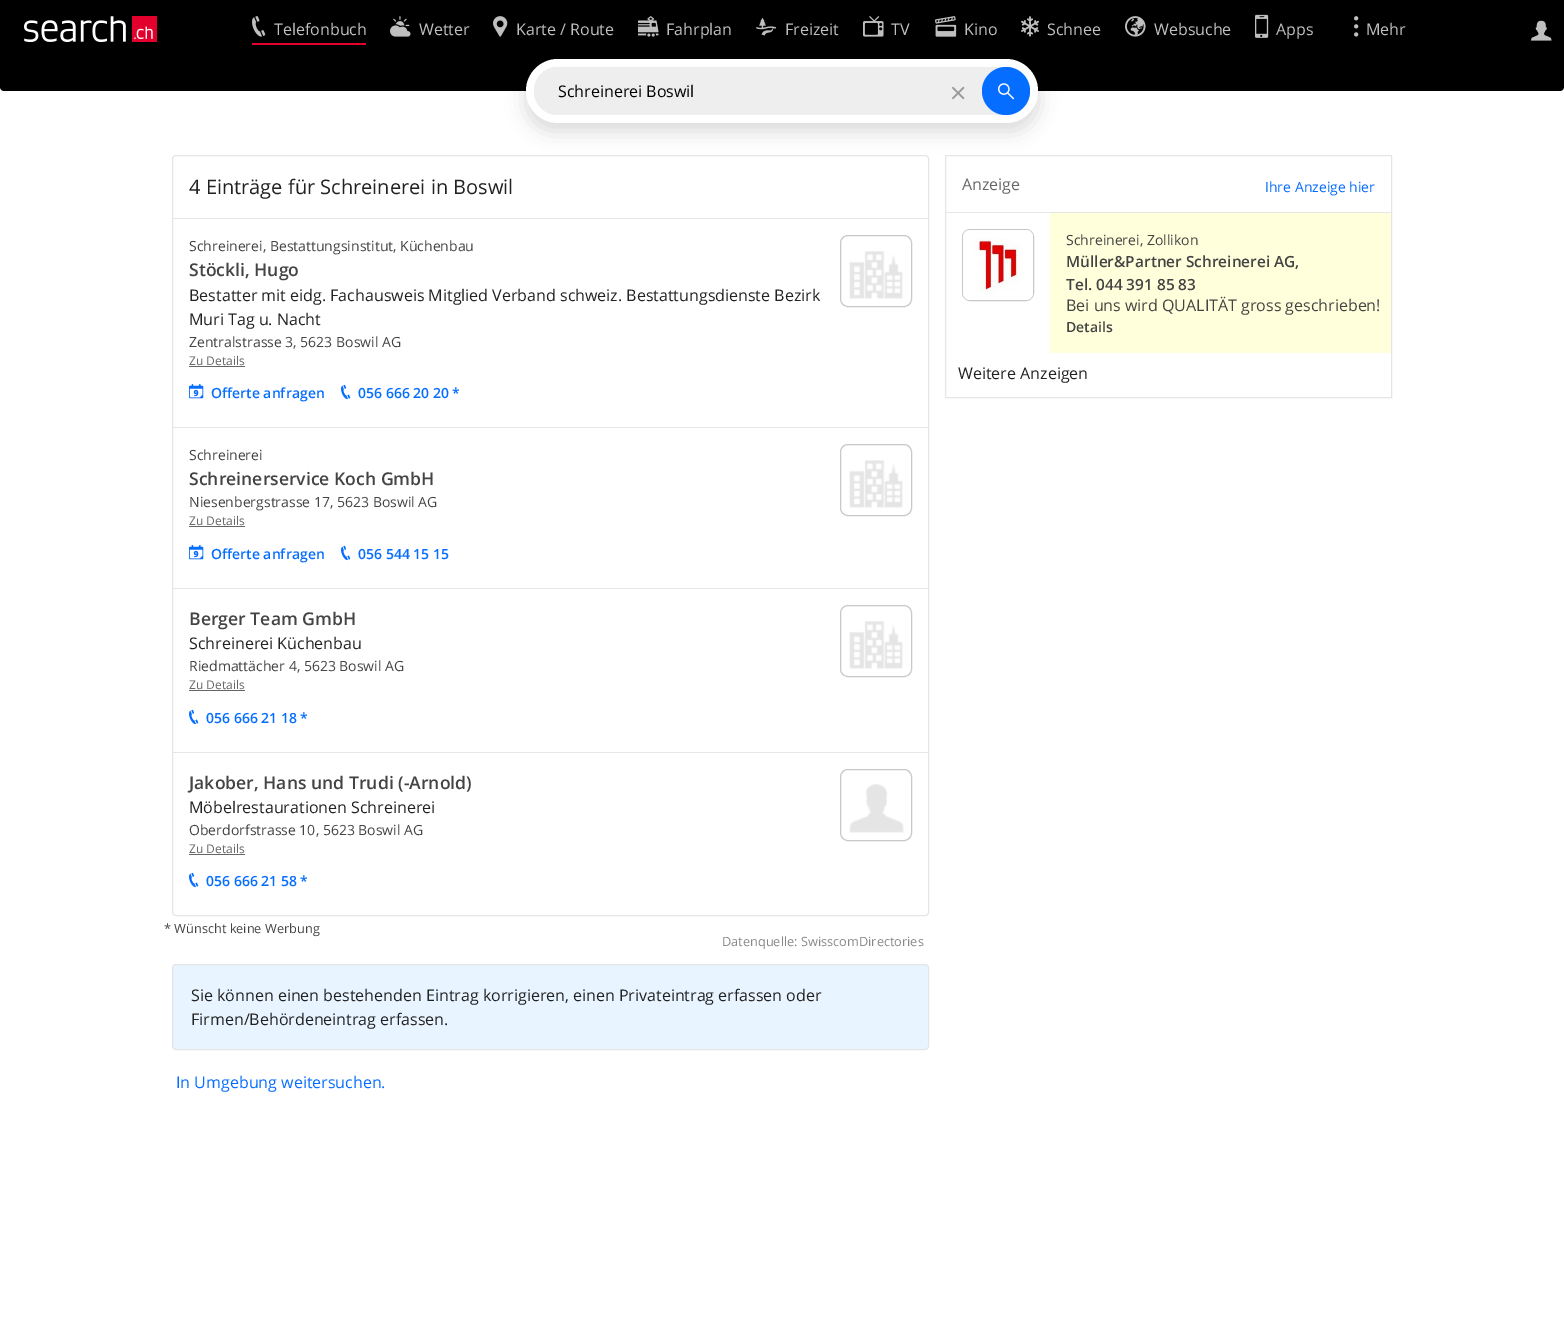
%!PS
<< /PageSize [1564 1326] /PageUsesTransparency true >> setpagedevice
/rgb { 3 { 255 div 3 1 roll } repeat setrgbcolor } def
/font { [ exch dup neg 0 0 3 -1 roll 0 0 ] selectfont } def
/alpha { dup .setfillconstantalpha .setstrokeconstantalpha } def
/circle { newpath 0 360 arc closepath } def
/roundrect { 5 dict begin { /r /h /w /y /x } { exch def } forall
  x r add y moveto x w add y 2 copy h add r arct x w add y h add x 1 index r arct
  x y h add x y r arct x y 2 copy exch w add exch r arct closepath end } def
/shadow { 12 dict begin { /a /b /q /h /w /y /x } { exch def } forall gsave /was 0 def
  9 -2 -9 { dup b mul 4 div /e exch def 1 sub .425 mul 2.718 exch exp 1 add a .99 .min exch div /now exch def
    1 1 now sub 1 was sub div sub alpha /was now def
    w h .min e 2 mul add 0 gt { x e sub y e sub w e 2 mul add h e 2 mul add
      q e add b .6 mul add w h .min 2 div e add .min 0 .max roundrect fill } if } for grestore end } def
/picture { 5 dict begin { /h /w /y /x /name } { exch def } forall
  gsave x y translate w h scale
  w h 8 [w 0 0 h 0 0] name (r) file false 3 colorimage grestore end } def
0 .pushpdf14devicefilter
0 1326 translate 1 -1 scale
4 setmiterlimit
255 255 255 rgb
0 0 1564 1326 rectfill
0 0 0 rgb
0 0 1564 59 rectfill
(img/1.rgb) 24 16 133 26 picture
228 0 44 rgb
252 43 114 2 rectfill
(img/2.rgb) 252 16 14 21 picture
(img/3.rgb) 390 16 21 21 picture
(img/4.rgb) 493 16 15 21 picture
(img/5.rgb) 638 16 21 21 picture
(img/6.rgb) 756 17 21 19 picture
(img/7.rgb) 863 16 21 21 picture
(img/8.rgb) 935 16 22 21 picture
(img/9.rgb) 1021 16 18 21 picture
(img/10.rgb) 1125 16 21 21 picture
(img/11.rgb) 1255 14 14 24 picture
(img/12.rgb) 1354 16 5 21 picture
(img/13.rgb) 1531 20 21 21 picture
0 0 0 rgb
0 59 moveto 1564 59 lineto 1564 87 lineto 1564 89 1562 91 1560 91 curveto 4 91 lineto 2 91 0 89 0 87 curveto closepath fill
229 229 229 rgb
172.5 155.5 756 760 3.5 roundrect stroke
945.5 155.5 446 242 rectstroke
0 0 0 rgb
526 67 512 64 32 10 0.15 shadow
255 255 255 rgb
526 59 512 64 32 roundrect fill
238 238 238 rgb
534 67 496 48 24 roundrect fill
534 67 400 48 24 roundrect fill
(img/14.rgb) 952 86 13 14 picture
5 109 255 rgb
1006 91 24 circle fill
(img/15.rgb) 998 83 16 17 picture
230 230 230 rgb
173 218 755 1 rectfill
102 102 102 rgb
189 366 56 1 rectfill
(img/16.rgb) 189 384 15 15 picture
(img/17.rgb) 341 384 10 16 picture
200 200 200 rgb
840.5 235.5 71 71 7.5 roundrect stroke
(img/18.rgb) 849 251 54 48 picture
230 230 230 rgb
173 427 755 1 rectfill
102 102 102 rgb
189 526 56 1 rectfill
(img/16.rgb) 189 545 15 15 picture
(img/17.rgb) 341 545 10 16 picture
200 200 200 rgb
840.5 444.5 71 71 7.5 roundrect stroke
(img/18.rgb) 849 460 54 48 picture
230 230 230 rgb
173 588 755 1 rectfill
102 102 102 rgb
189 690 56 1 rectfill
(img/17.rgb) 189 709 10 16 picture
200 200 200 rgb
840.5 605.5 71 71 7.5 roundrect stroke
(img/18.rgb) 849 621 54 48 picture
230 230 230 rgb
173 752 755 1 rectfill
102 102 102 rgb
189 854 56 1 rectfill
(img/17.rgb) 189 872 10 16 picture
200 200 200 rgb
840.5 769.5 71 71 7.5 roundrect stroke
(img/19.rgb) 849 784 55 49 picture
232 244 255 rgb
172.5 964.5 756 85 3.5 roundrect gsave fill grestore
229 229 229 rgb
stroke
230 230 230 rgb
946 212 445 1 rectfill
200 200 200 rgb
962.5 229.5 71 71 7.5 roundrect stroke
(img/20.rgb) 963 230 70 70 picture
255 255 219 rgb
1050 213 341 140 rectfill
/OpenSans-Regular 16 font
191 191 191 rgb
[
  [(Telefonbuch) 274 35]
  [(Wetter) 419 35]
  [(Karte / Route) 516 35]
  [(Fahrplan) 666 35]
  [(Freizeit) 785 35]
  [(TV) 891 35]
  [(Kino) 964 35]
  [(Schnee) 1047 35]
  [(Websuche) 1154 35]
  [(Apps) 1276 35]
  [(Mehr) 1366 35]
] { aload pop moveto show } forall
0 0 0 rgb
558 97 moveto (Schreinerei Boswil) show
/OpenSans-Regular 20 font
34 34 34 rgb
189 194 moveto (4 Einträge für Schreinerei in Boswil) show
/OpenSans-Regular 14 font
68 68 68 rgb
189 251 moveto (Schreinerei, Bestattungsinstitut, Küchenbau) show
/OpenSans-SemiBold 17.6 font
189 276 moveto (Stöckli, Hugo) show
/OpenSans-Regular 16 font
34 34 34 rgb
189 301 moveto (Bestatter mit eidg. Fachausweis Mitglied Verband schweiz. Bestattungsdienste Bezirk) show
189 325 moveto (Muri Tag u. Nacht) show
/OpenSans-Regular 14 font
68 68 68 rgb
189 347 moveto (Zentralstrasse 3, 5623 Boswil AG) show
/OpenSans-Regular 12 font
102 102 102 rgb
189 365 moveto (Zu Details) show
/OpenSans-SemiBold 14 font
5 109 255 rgb
211 398 moveto (Offerte anfragen) show
358 398 moveto (056 666 20 20 *) show
/OpenSans-Regular 14 font
68 68 68 rgb
189 460 moveto (Schreinerei) show
/OpenSans-SemiBold 17.6 font
189 485 moveto (Schreinerservice Koch GmbH) show
/OpenSans-Regular 14 font
189 507 moveto (Niesenbergstrasse 17, 5623 Boswil AG) show
/OpenSans-Regular 12 font
102 102 102 rgb
189 525 moveto (Zu Details) show
/OpenSans-SemiBold 14 font
5 109 255 rgb
211 559 moveto (Offerte anfragen) show
358 559 moveto (056 544 15 15) show
/OpenSans-SemiBold 17.6 font
68 68 68 rgb
189 625 moveto (Berger Team GmbH) show
/OpenSans-Regular 16 font
34 34 34 rgb
189 649 moveto (Schreinerei Küchenbau) show
/OpenSans-Regular 14 font
68 68 68 rgb
189 671 moveto (Riedmattächer 4, 5623 Boswil AG) show
/OpenSans-Regular 12 font
102 102 102 rgb
189 689 moveto (Zu Details) show
/OpenSans-SemiBold 14 font
5 109 255 rgb
206 723 moveto (056 666 21 18 *) show
/OpenSans-SemiBold 17.6 font
68 68 68 rgb
189 789 moveto (Jakober, Hans und Trudi \(-Arnold\)) show
/OpenSans-Regular 16 font
34 34 34 rgb
189 813 moveto (Möbelrestaurationen Schreinerei) show
/OpenSans-Regular 14 font
68 68 68 rgb
189 835 moveto (Oberdorfstrasse 10, 5623 Boswil AG) show
/OpenSans-Regular 12 font
102 102 102 rgb
189 853 moveto (Zu Details) show
/OpenSans-SemiBold 14 font
5 109 255 rgb
206 886 moveto (056 666 21 58 *) show
/OpenSans-Regular 12.75 font
68 68 68 rgb
164 933 moveto (* Wünscht keine Werbung) show
136 136 136 rgb
722 946 moveto (Datenquelle: SwisscomDirectories) show
/OpenSans-Regular 16 font
34 34 34 rgb
191 1001 moveto (Sie können einen bestehenden Eintrag korrigieren, einen Privateintrag erfassen oder) show
191 1025 moveto (Firmen/Behördeneintrag erfassen.) show
5 109 255 rgb
176 1088 moveto (In Umgebung weitersuchen.) show
102 102 102 rgb
962 190 moveto (Anzeige) show
/OpenSans-Regular 14 font
5 109 255 rgb
1265 192 moveto (Ihre Anzeige hier) show
68 68 68 rgb
1066 245 moveto (Schreinerei, Zollikon) show
/OpenSans-SemiBold 15.4 font
1066 267 moveto (Müller&Partner Schreinerei AG,) show
1066 290 moveto (Tel. 044 391 85 83) show
/OpenSans-Regular 16 font
1066 311 moveto (Bei uns wird QUALITÄT gross geschrieben!) show
/OpenSans-SemiBold 14 font
1066 332 moveto (Details) show
/OpenSans-Regular 16 font
34 34 34 rgb
958 379 moveto (Weitere Anzeigen) show
.poppdf14devicefilter showpage
